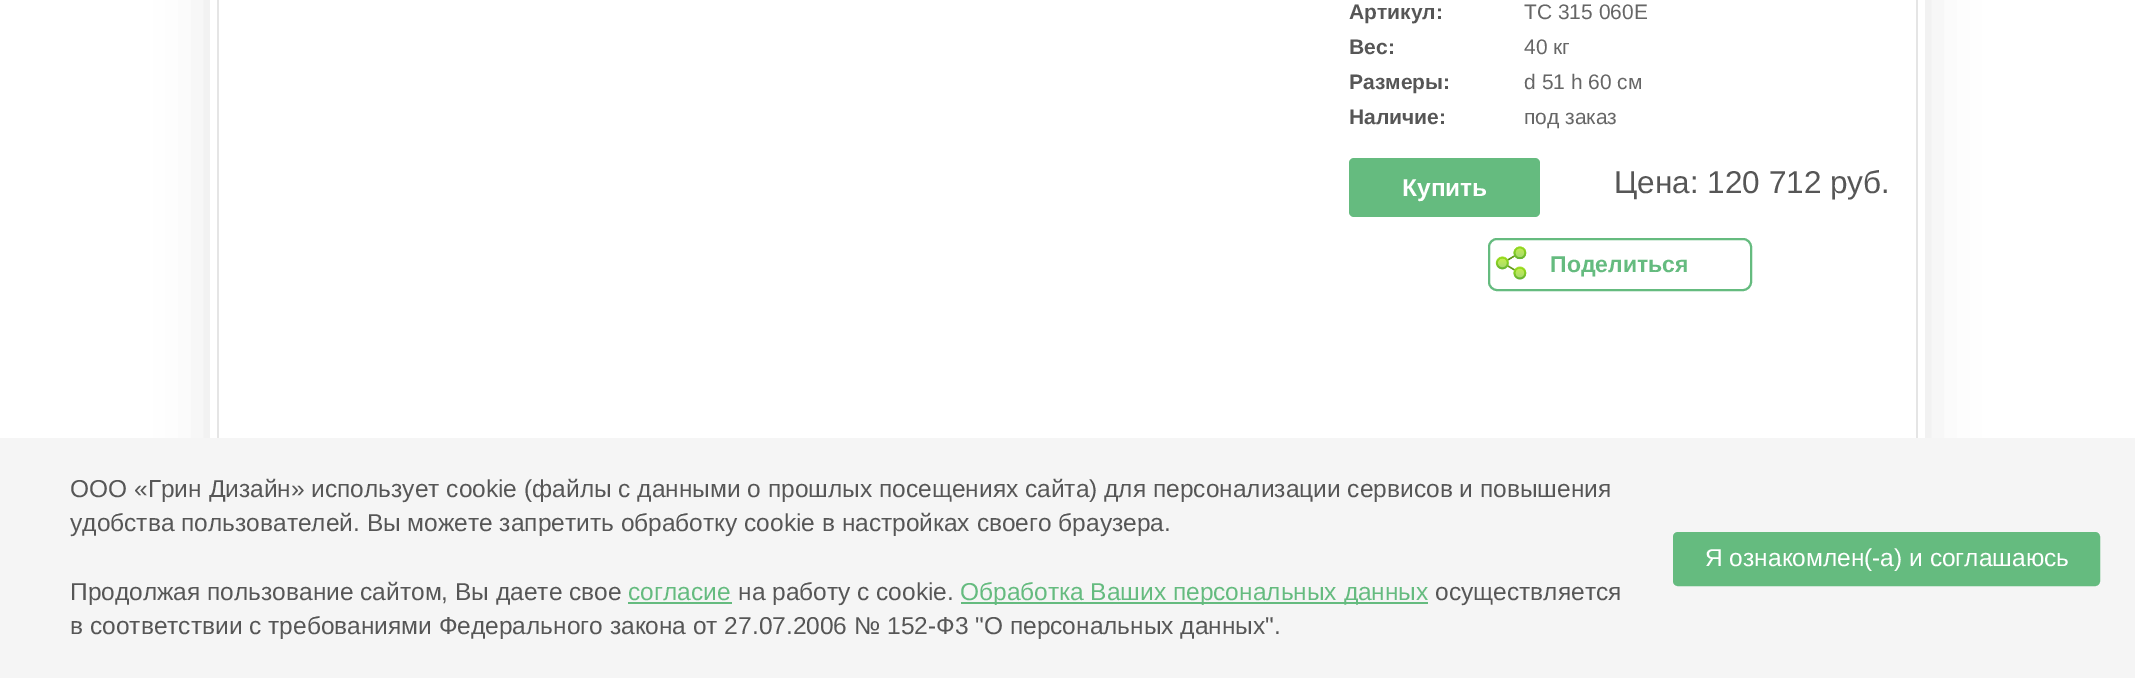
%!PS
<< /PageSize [2135 678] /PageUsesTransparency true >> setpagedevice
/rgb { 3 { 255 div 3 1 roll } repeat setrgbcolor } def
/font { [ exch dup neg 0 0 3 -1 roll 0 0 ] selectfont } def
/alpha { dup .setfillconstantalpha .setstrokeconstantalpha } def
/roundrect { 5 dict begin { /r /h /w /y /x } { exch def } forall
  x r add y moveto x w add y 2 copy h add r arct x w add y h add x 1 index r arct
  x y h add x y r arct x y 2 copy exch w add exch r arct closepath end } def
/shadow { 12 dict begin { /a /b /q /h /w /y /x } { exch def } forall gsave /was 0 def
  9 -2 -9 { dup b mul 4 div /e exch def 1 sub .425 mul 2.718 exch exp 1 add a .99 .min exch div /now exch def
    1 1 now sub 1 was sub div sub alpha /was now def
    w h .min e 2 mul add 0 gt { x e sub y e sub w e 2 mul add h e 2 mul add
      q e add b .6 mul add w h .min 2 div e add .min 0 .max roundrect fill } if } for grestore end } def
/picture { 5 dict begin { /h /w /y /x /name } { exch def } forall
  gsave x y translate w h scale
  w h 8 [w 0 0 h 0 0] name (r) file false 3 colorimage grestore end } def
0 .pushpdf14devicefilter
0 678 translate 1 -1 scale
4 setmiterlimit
255 255 255 rgb
0 0 2135 678 rectfill
gsave
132 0 moveto 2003 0 lineto 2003 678 lineto 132 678 lineto closepath 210 -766 moveto 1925 -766 lineto 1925 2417 lineto 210 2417 lineto closepath eoclip newpath
229 229 229 rgb
210 -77 1715 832 0 25.5 1 shadow
grestore
229 229 229 rgb
1916 0 2 438 rectfill
217 0 2 438 rectfill
101 187 127 rgb
1349 158 191 59 5 roundrect fill
2 setlinewidth
1489 239 262 51 8 roundrect stroke
(img/1.rgb) 1495 246 32 34 picture
[
  [0 438 2135 240 245 245 245]
  [628 602 104 2 101 187 127]
  [961 602 467 2 101 187 127]
] { aload pop rgb rectfill } forall
1675 534 423 50 3 roundrect gsave fill grestore
4 setlinewidth
stroke
/LiberationSans-Bold 21 font
86 86 86 rgb
1349 19 moveto (Артикул:) show
/LiberationSans-Regular 21 font
102 102 102 rgb
1524 19 moveto (TC 315 060Е) show
/LiberationSans-Bold 21 font
86 86 86 rgb
1349 54 moveto (Вес:) show
/LiberationSans-Regular 21 font
102 102 102 rgb
1524 54 moveto (40 кг) show
/LiberationSans-Bold 21 font
86 86 86 rgb
1349 89 moveto (Размеры:) show
/LiberationSans-Regular 21 font
102 102 102 rgb
1524 89 moveto (d 51 h 60 см) show
/LiberationSans-Bold 21 font
86 86 86 rgb
1349 124 moveto (Наличие:) show
/LiberationSans-Regular 21 font
102 102 102 rgb
1524 124 moveto (под заказ) show
/LiberationSans-Bold 24.5 font
255 255 255 rgb
1402 196 moveto (Купить) show
/LiberationSans-Regular 31.5 font
86 86 86 rgb
1614 193 moveto (Цена: 120 712 руб.) show
/LiberationSans-Bold 23 font
101 187 127 rgb
1550 272 moveto (Поделиться) show
/LiberationSans-Regular 24.5 font
86 86 86 rgb
[
  [(ООО «Грин Дизайн» использует cookie \(файлы с данными о прошлых посещениях сайта\) для персонализации сервисов и повышения) 70 497]
  [(удобства пользователей. Вы можете запретить обработку cookie в настройках своего браузера.) 70 531]
  [(Продолжая пользование сайтом, Вы даете свое) 70 600]
] { aload pop moveto show } forall
101 187 127 rgb
628 600 moveto (согласие) show
86 86 86 rgb
738 600 moveto (на работу с cookie.) show
101 187 127 rgb
960 600 moveto (Обработка Ваших персональных данных) show
86 86 86 rgb
1435 600 moveto (осуществляется) show
70 634 moveto (в соответствии с требованиями Федерального закона от 27.07.2006 № 152-Ф3 "О персональных данных".) show
255 255 255 rgb
1705 566 moveto (Я ознакомлен\(-а\) и соглашаюсь) show
.poppdf14devicefilter showpage
